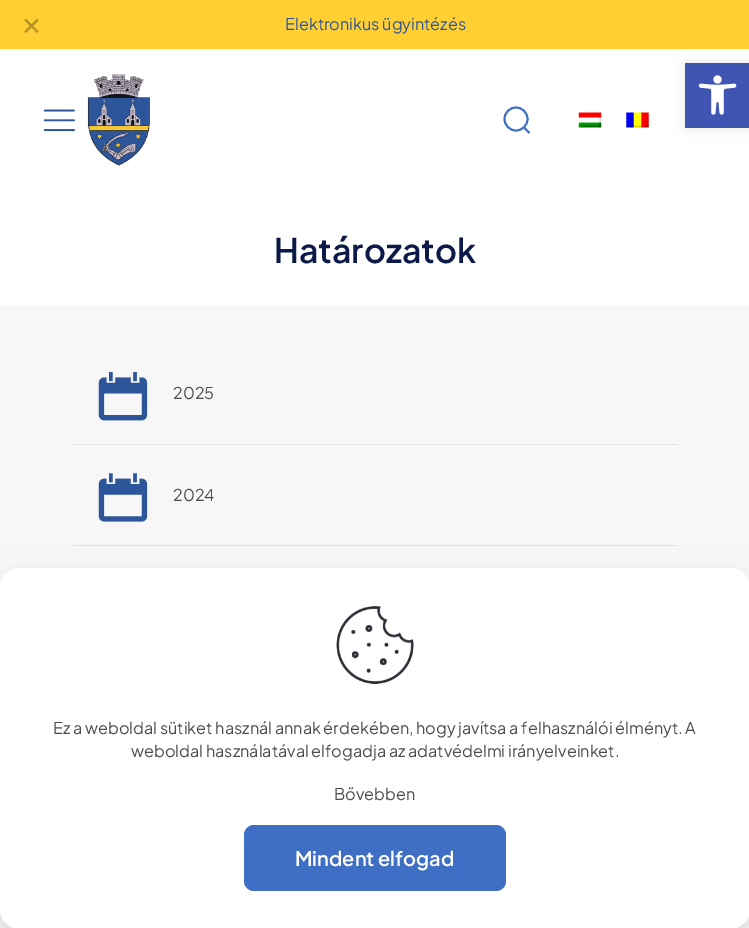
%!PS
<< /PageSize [749 928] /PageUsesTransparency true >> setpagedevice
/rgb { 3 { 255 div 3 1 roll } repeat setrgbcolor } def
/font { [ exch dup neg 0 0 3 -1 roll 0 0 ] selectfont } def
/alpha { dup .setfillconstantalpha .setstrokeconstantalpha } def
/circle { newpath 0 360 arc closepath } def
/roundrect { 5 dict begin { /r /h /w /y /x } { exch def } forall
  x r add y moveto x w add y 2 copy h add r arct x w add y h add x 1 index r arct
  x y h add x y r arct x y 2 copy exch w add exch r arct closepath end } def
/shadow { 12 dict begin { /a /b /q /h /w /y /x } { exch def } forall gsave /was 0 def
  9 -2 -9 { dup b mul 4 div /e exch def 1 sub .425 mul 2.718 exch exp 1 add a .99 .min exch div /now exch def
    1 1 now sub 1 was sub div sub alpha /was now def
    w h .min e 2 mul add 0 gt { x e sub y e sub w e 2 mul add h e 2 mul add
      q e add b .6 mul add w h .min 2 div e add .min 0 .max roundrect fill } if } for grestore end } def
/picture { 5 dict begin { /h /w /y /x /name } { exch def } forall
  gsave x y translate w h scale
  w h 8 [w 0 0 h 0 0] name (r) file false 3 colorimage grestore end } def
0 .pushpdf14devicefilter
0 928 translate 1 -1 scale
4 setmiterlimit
247 247 247 rgb
0 0 749 928 rectfill
255 207 52 rgb
0 0 749 49 rectfill
255 255 255 rgb
0 49 749 257 rectfill
(img/1.rgb) 44 109 31 23 picture
(img/2.rgb) 87 74 63 92 picture
62 111 196 rgb
1.9 setlinewidth
516 119 11.5 circle stroke
523.5 127 moveto 529.5 133 lineto stroke
(img/3.rgb) 578 112 24 16 picture
(img/4.rgb) 626 112 23 16 picture
227 227 227 rgb
73 444 605 1 rectfill
(img/5.rgb) 98 372 50 49 picture
73 545 605 1 rectfill
(img/6.rgb) 98 473 50 49 picture
0 0 0 rgb
685 63 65 65 0 6 0.1 shadow
64 84 178 rgb
685 63 64 65 rectfill
(img/7.rgb) 698 75 39 40 picture
1 7 39 rgb
0 586 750 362 20 19 0.13 shadow
255 255 255 rgb
0 568 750 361 20 roundrect fill
(img/8.rgb) 336 606 78 78 picture
62 111 196 rgb
244 825 262 66 10 roundrect fill
/DejaVuSans-Regular 25 font
179 145 36 rgb
21 35 moveto (✕) show
/PlusJakartaSans-Regular 16.25 font
45 85 154 rgb
285 30 moveto (Elektronikus ügyintézés) show
/PlusJakartaSans-SemiBold 33.75 font
11 26 72 rgb
274 263 moveto (Határozatok) show
/PlusJakartaSans-Regular 16.25 font
76 77 82 rgb
[
  [(2025) 173 399]
  [(2024) 173 501]
  [(Ez a weboldal sütiket használ annak érdekében, hogy javítsa a felhasználói élményt. A) 53 734]
  [(weboldal használatával elfogadja az adatvédelmi irányelveinket.) 131 757]
  [(Bővebben) 334 800]
] { aload pop moveto show } forall
/PlusJakartaSans-SemiBold 20 font
255 255 255 rgb
295 866 moveto (Mindent elfogad) show
.poppdf14devicefilter showpage
